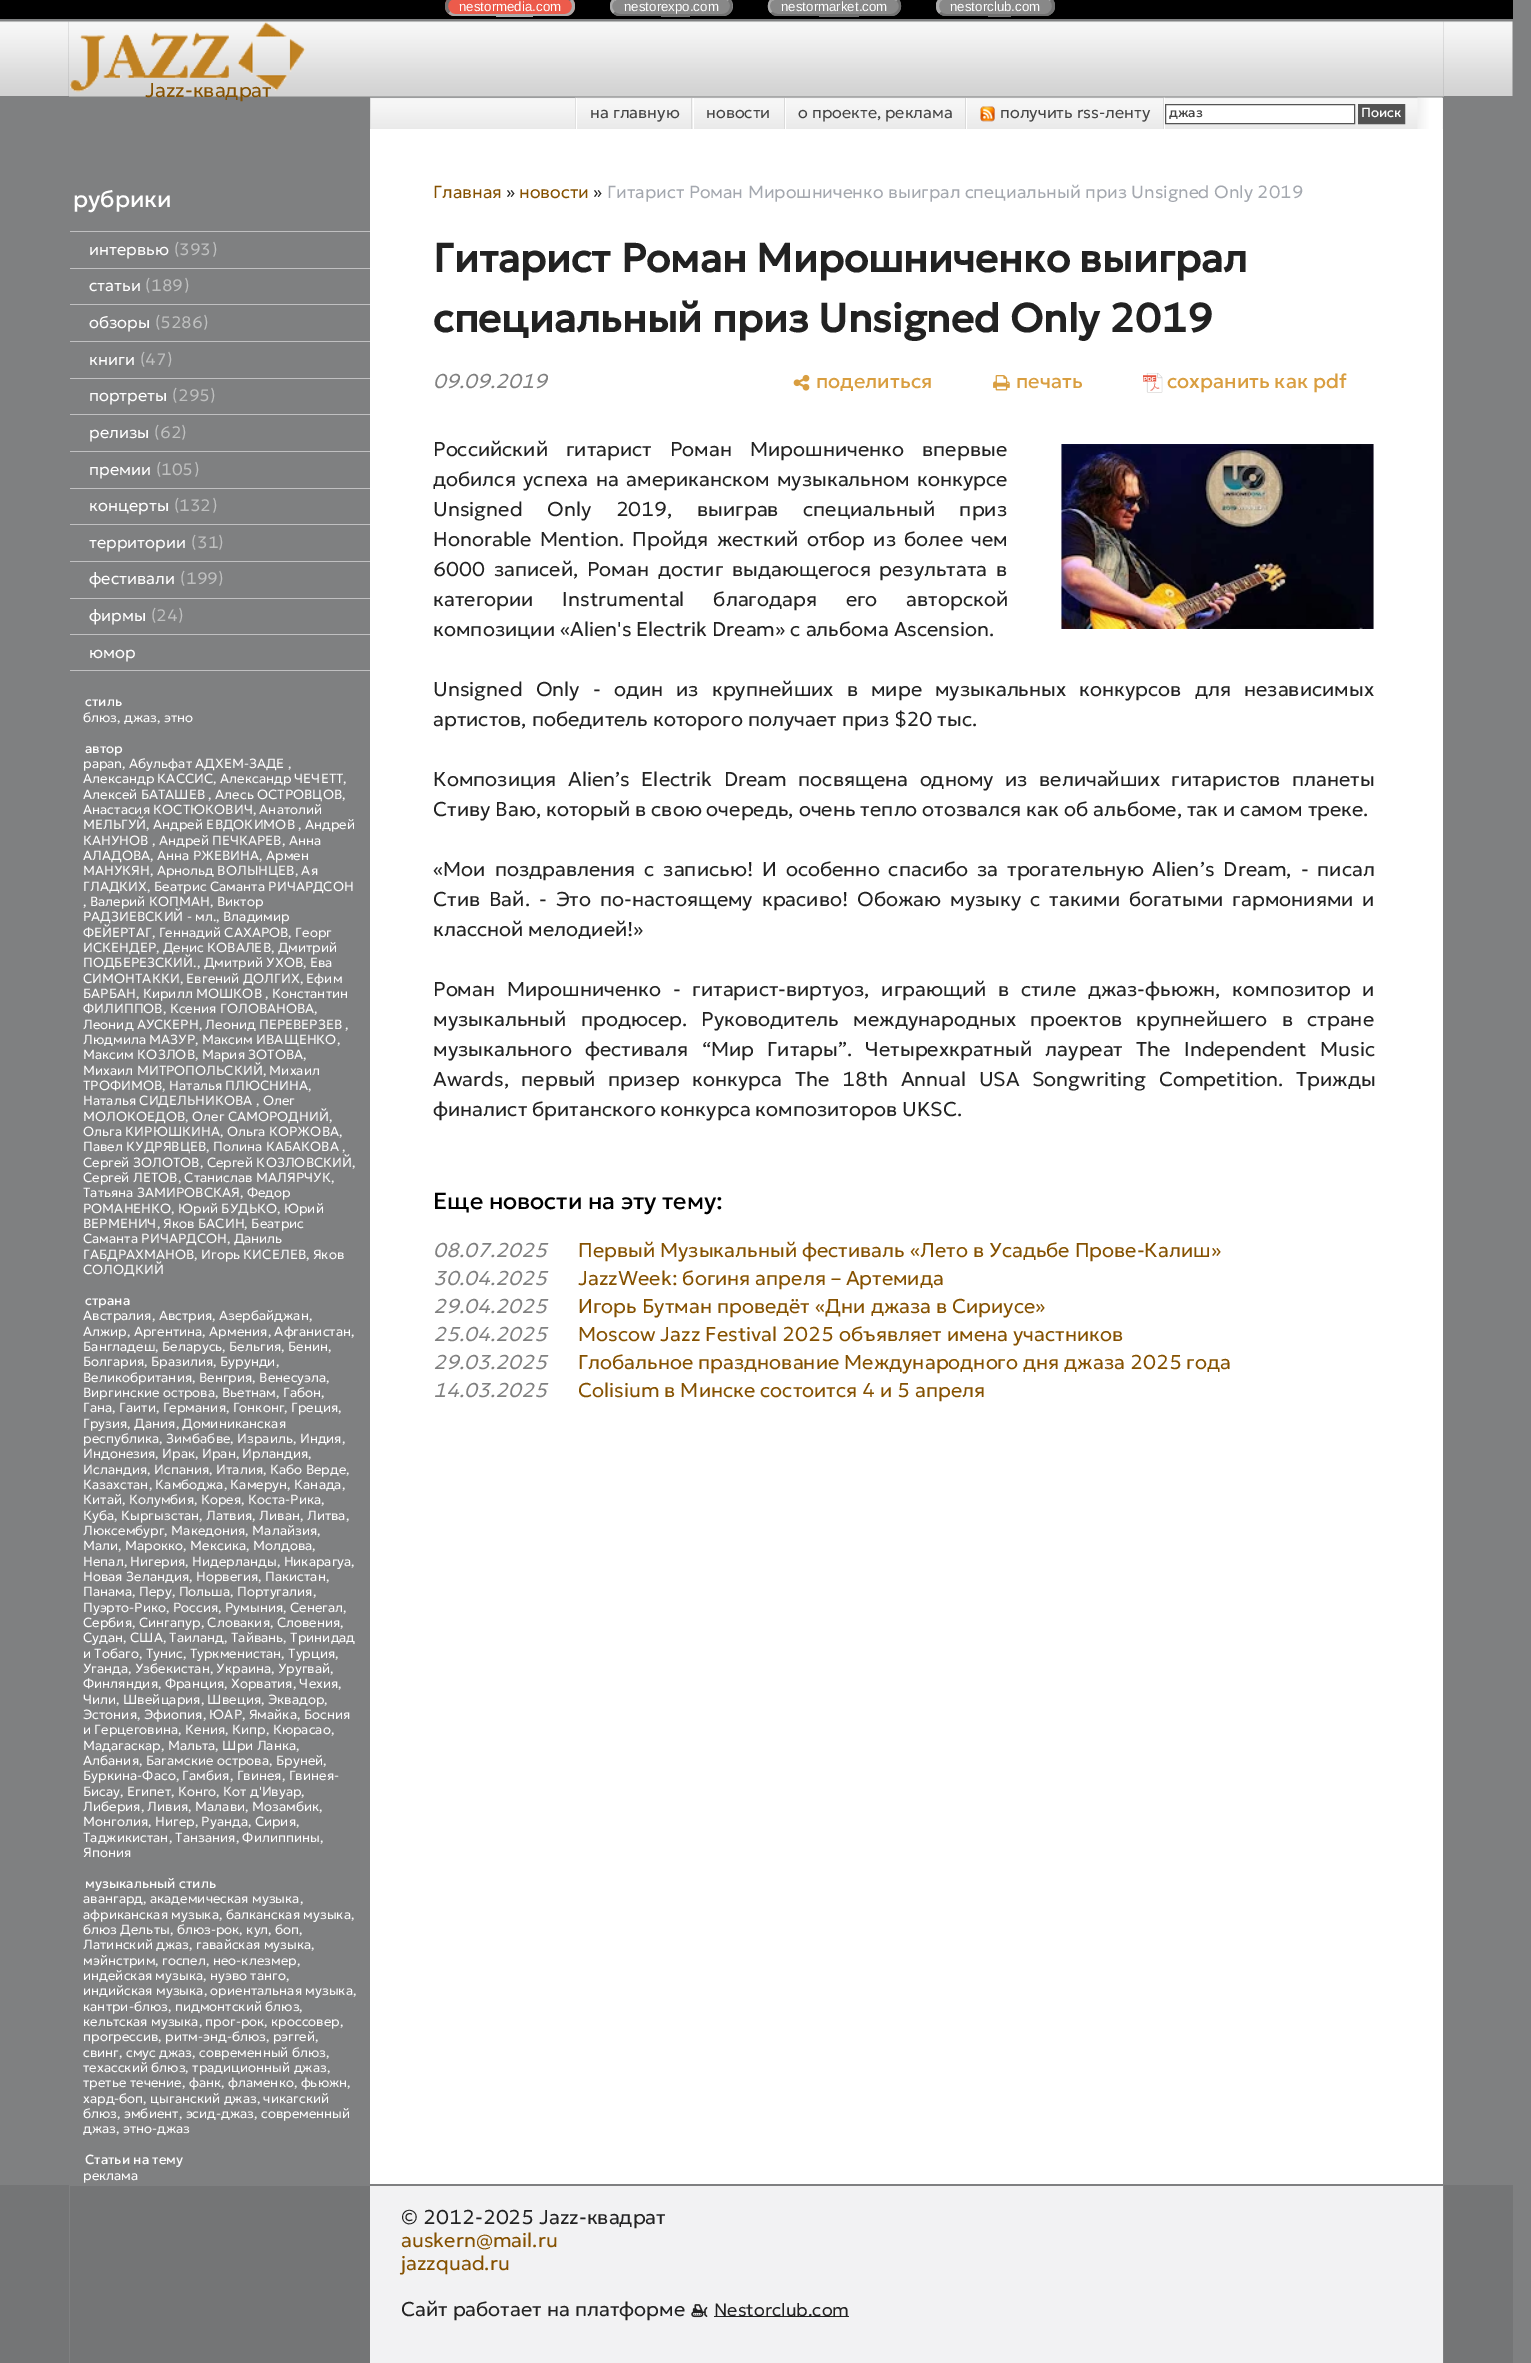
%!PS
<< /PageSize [1531 2363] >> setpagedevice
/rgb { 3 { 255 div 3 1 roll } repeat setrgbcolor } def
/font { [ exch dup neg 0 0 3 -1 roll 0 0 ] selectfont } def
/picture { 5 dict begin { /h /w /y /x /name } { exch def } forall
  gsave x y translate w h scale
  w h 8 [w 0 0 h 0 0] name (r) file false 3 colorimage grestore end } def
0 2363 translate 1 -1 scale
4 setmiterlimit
127 128 129 rgb
0 0 1531 2363 rectfill
0 0 0 rgb
0 0 1513 19 rectfill
236 91 75 rgb
455 -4 moveto 496 -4 lineto 496 16 lineto 455 16 lineto 449.5 16 445 11.5 445 6 curveto 445 0.5 449.5 -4 455 -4 curveto closepath fill
113 113 113 rgb
455 -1 moveto 453 -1 451 0 450 1 curveto 448 -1 lineto 449 -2 451 -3 453 -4 curveto 496 -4 lineto 496 -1 lineto closepath fill
170 170 170 rgb
450 11 moveto 448 13 lineto 450 15 452 16 455 16 curveto 496 16 lineto 496 14 lineto 455 14 lineto 453 14 451 13 450 11 curveto closepath fill
113 113 113 rgb
448 13.5 moveto 444 9.5 444 3 448 -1 curveto 450 1 lineto 447 4 447.5 8.5 450 11.5 curveto closepath fill
236 91 75 rgb
496 0 37 14 rectfill
170 170 170 rgb
496 14 37 3 rectfill
236 91 75 rgb
533 -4 moveto 565 -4 lineto 570.5 -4 575 0.5 575 6 curveto 575 11.5 570.5 16 565 16 curveto 533 16 lineto closepath fill
113 113 113 rgb
532.5 -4 moveto 567.5 -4 lineto 569 -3.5 571 -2.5 572 -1 curveto 570 1 lineto 569 0 567 -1 565 -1 curveto 532.5 -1 lineto closepath fill
170 170 170 rgb
570 11.5 moveto 572.5 8.5 573 4 570 1 curveto 572 -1 lineto 576 3 576 9.5 572 13.5 curveto closepath fill
532.5 14 moveto 565 14 lineto 567 14 569 13 570 11.5 curveto 572 13.5 lineto 570.5 15 568 16 565 16 curveto 532.5 16 lineto closepath fill
136 136 136 rgb
620 -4 moveto 661 -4 lineto 661 16 lineto 620 16 lineto 614.5 16 610 11.5 610 6 curveto 610 0.5 614.5 -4 620 -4 curveto closepath fill
170 170 170 rgb
620 -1 moveto 618 -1 616 0 615 1 curveto 613 -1 lineto 614 -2 616 -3 618 -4 curveto 661 -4 lineto 661 -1 lineto closepath fill
113 113 113 rgb
615 12 moveto 613 13 lineto 615 15 617 16 620 16 curveto 661 16 lineto 661 14 lineto 620 14 lineto 618 14 616 13 615 12 curveto closepath fill
170 170 170 rgb
613 13.5 moveto 609 9.5 609 3 613 -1 curveto 614.5 1 lineto 611 4 611.5 8.5 614.5 11.5 curveto closepath fill
136 136 136 rgb
661 0 29 14 rectfill
113 113 113 rgb
661 14 29 3 rectfill
136 136 136 rgb
690 -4 moveto 723 -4 lineto 728.5 -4 733 0.5 733 6 curveto 733 11.5 728.5 16 723 16 curveto 690 16 lineto closepath fill
170 170 170 rgb
690 -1 moveto 722 -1 lineto 724.5 -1 726.5 -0.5 728 1 curveto 729.5 -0.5 lineto 728 -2 726.5 -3.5 724.5 -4 curveto 690 -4 lineto closepath fill
113 113 113 rgb
728 11.5 moveto 730.5 8.5 731 3.5 728 1 curveto 729.5 -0.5 lineto 733 3 733 9.5 729.5 13 curveto closepath fill
690 14 moveto 690 16 lineto 722 16 lineto 725 16 727.5 15 729.5 13 curveto 728 11.5 lineto 726.5 13 724.5 14 722 14 curveto closepath fill
136 136 136 rgb
778 -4 moveto 819 -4 lineto 819 16 lineto 778 16 lineto 772.5 16 768 11.5 768 6 curveto 768 0.5 772.5 -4 778 -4 curveto closepath fill
170 170 170 rgb
778 -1 moveto 776 -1 774 0 772 1 curveto 771 -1 lineto 772 -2 774 -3 776 -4 curveto 819 -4 lineto 819 -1 lineto closepath fill
113 113 113 rgb
819 16 moveto 778 16 lineto 775 16 772 15 771 13 curveto 772 12 lineto 774 13 776 14 778 14 curveto 819 14 lineto closepath fill
170 170 170 rgb
770.5 13 moveto 767 9.5 767 3 770.5 -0.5 curveto 772 1 lineto 769 3.5 769.5 8.5 772 11.5 curveto closepath fill
136 136 136 rgb
819 0 40 14 rectfill
113 113 113 rgb
819 14 40 3 rectfill
136 136 136 rgb
859 -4 moveto 891 -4 lineto 896.5 -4 901 0.5 901 6 curveto 901 11.5 896.5 16 891 16 curveto 859 16 lineto closepath fill
170 170 170 rgb
859 -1 moveto 859 -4 lineto 893.5 -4 lineto 895.5 -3.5 897 -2 898.5 -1 curveto 896.5 1 lineto 895 0 893 -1 891 -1 curveto closepath fill
113 113 113 rgb
896.5 11.5 moveto 899.5 8.5 900 4 896.5 1 curveto 898.5 -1 lineto 902 3 902 9.5 898 13 curveto closepath fill
898 13 moveto 896.5 11.5 lineto 895 13 893 14 891 14 curveto 859 14 lineto 859 16 lineto 891 16 lineto 894 16 896.5 15 898 13 curveto closepath fill
136 136 136 rgb
946 -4 moveto 988 -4 lineto 988 16 lineto 946 16 lineto 940.5 16 936 11.5 936 6 curveto 936 0.5 940.5 -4 946 -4 curveto closepath fill
170 170 170 rgb
946 -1 moveto 944 -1 942 0 941 1 curveto 939 -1 lineto 941 -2 942 -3 944 -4 curveto 988 -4 lineto 988 -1 lineto closepath fill
113 113 113 rgb
988 16 moveto 946 16 lineto 944 16 941 15 939 13 curveto 941 12 lineto 942 13 944 14 946 14 curveto 988 14 lineto closepath fill
170 170 170 rgb
936 4 moveto 936.5 2 937.5 0.5 939 -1 curveto 941 1 lineto 938 4 938.5 8.5 941 11.5 curveto 939 13.5 lineto 936 10.5 936 8 936 4 curveto closepath fill
136 136 136 rgb
988 0 23 14 rectfill
113 113 113 rgb
988 14 23 3 rectfill
136 136 136 rgb
1011 -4 moveto 1045 -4 lineto 1050.5 -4 1055 0.5 1055 6 curveto 1055 11.5 1050.5 16 1045 16 curveto 1011 16 lineto closepath fill
170 170 170 rgb
1011 -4 moveto 1047 -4 lineto 1049 -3 1051 -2 1052 -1 curveto 1050 1 lineto 1049 0 1047 -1 1045 -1 curveto 1011 -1 lineto closepath fill
113 113 113 rgb
1050 11.5 moveto 1052.5 8.5 1053 4 1050 1 curveto 1052 -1 lineto 1056 3 1056 9.5 1052 13.5 curveto closepath fill
1011 14 moveto 1045 14 lineto 1047 14 1049 13 1050 11 curveto 1052 13 lineto 1050 15 1048 16 1045 16 curveto 1011 16 lineto closepath fill
(img/1.rgb) 0 21 69 75 picture
(img/2.rgb) 68 21 1376 76 picture
(img/3.rgb) 70 22 236 70 picture
(img/4.rgb) 1443 21 70 76 picture
[
  [68 96 1 1 127 128 129]
  [1444 96 69 1 127 128 129]
  [370 98 1073 68 255 255 255]
] { aload pop rgb rectfill } forall
(img/5.rgb) 370 97 1073 32 picture
224 224 224 rgb
370 98 1 31 rectfill
(img/6.rgb) 575 97 868 32 picture
[
  [575 98 1 31 224 224 224]
  [691 98 1 31 218 218 218]
  [576 98 1 31 255 255 255]
  [784 98 1 31 218 218 218]
  [693 98 1 31 255 255 255]
  [965 98 1 31 218 218 218]
  [785 98 1 31 255 255 255]
  [1163 98 1 31 218 218 218]
  [966 98 1 31 255 255 255]
] { aload pop rgb rectfill } forall
(img/7.rgb) 980 106 15 16 picture
(img/8.rgb) 1417 97 26 32 picture
1165.5 104.5 moveto 1354.5 104.5 lineto 1354.5 123.5 lineto 1165.5 123.5 lineto closepath gsave fill grestore
84 84 84 rgb
stroke
82 82 82 rgb
1358.5 104.5 moveto 1404.5 104.5 lineto 1404.5 123.5 lineto 1358.5 123.5 lineto closepath gsave fill grestore
84 84 84 rgb
stroke
[
  [70 231 301 1 192 192 193]
  [70 268 301 1 192 192 193]
  [70 304 301 1 192 192 193]
  [70 341 301 1 192 192 193]
  [70 378 301 1 192 192 193]
  [70 414 301 1 192 192 193]
  [70 451 301 1 192 192 193]
  [70 488 301 1 192 192 193]
  [70 524 301 1 192 192 193]
  [70 561 301 1 192 192 193]
  [70 598 301 1 192 192 193]
  [70 634 301 1 192 192 193]
  [70 670 301 1 192 192 193]
  [370 166 1073 2018 255 255 255]
] { aload pop rgb rectfill } forall
(img/9.rgb) 793 374 17 17 picture
(img/10.rgb) 993 375 17 16 picture
(img/11.rgb) 1143 373 20 20 picture
(img/12.rgb) 1061 444 313 185 picture
[
  [0 2185 69 178 116 117 118]
  [70 2186 300 177 116 117 118]
  [370 2186 1073 177 242 242 243]
] { aload pop rgb rectfill } forall
(img/13.rgb) 691 2304 17 14 picture
34 34 34 rgb
714 2316 135 1 rectfill
116 117 118 rgb
1444 2185 69 178 rectfill
/LiberationSans-Regular 13.3 font
255 255 255 rgb
[
  [(nestormedia.com) 459 11]
  [(nestorexpo.com) 624 11]
  [(nestormarket.com) 781 11]
  [(nestorclub.com) 950 11]
] { aload pop moveto show } forall
/Geologica-Light 20 font
133 81 0 rgb
145 97 moveto (Jazz-квадрат) show
/Geologica-Light 16.25 font
68 68 68 rgb
[
  [(на главную) 590 118]
  [(новости) 706 118]
  [(о проекте, реклама) 798 118]
  [(получить rss-ленту) 1000 118]
] { aload pop moveto show } forall
/Geologica-Regular 13.3 font
1169 117 moveto (джаз) show
255 255 255 rgb
1361 117 moveto (Поиск) show
/Geologica-Regular 23.25 font
73 207 moveto (рубрики) show
/Geologica-Light 16.5 font
89 255 moveto (интервью) show
191 192 192 rgb
174 255 moveto (\() show
/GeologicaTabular-Light 16.5 font
179 255 moveto (393) show
/Geologica-Light 16.5 font
212 255 moveto (\)) show
255 255 255 rgb
89 291 moveto (статьи) show
191 192 192 rgb
145 291 moveto (\() show
/GeologicaTabular-Light 16.5 font
151 291 moveto (189) show
/Geologica-Light 16.5 font
184 291 moveto (\)) show
255 255 255 rgb
89 328 moveto (обзоры) show
191 192 192 rgb
155 328 moveto (\() show
/GeologicaTabular-Light 16.5 font
160 328 moveto (5286) show
/Geologica-Light 16.5 font
203 328 moveto (\)) show
255 255 255 rgb
89 365 moveto (книги) show
191 192 192 rgb
140 365 moveto (\() show
/GeologicaTabular-Light 16.5 font
145 365 moveto (47) show
/Geologica-Light 16.5 font
167 365 moveto (\)) show
255 255 255 rgb
89 401 moveto (портреты) show
191 192 192 rgb
172 401 moveto (\() show
/GeologicaTabular-Light 16.5 font
178 401 moveto (295) show
/Geologica-Light 16.5 font
210 401 moveto (\)) show
255 255 255 rgb
89 438 moveto (релизы) show
191 192 192 rgb
154 438 moveto (\() show
/GeologicaTabular-Light 16.5 font
160 438 moveto (62) show
/Geologica-Light 16.5 font
181 438 moveto (\)) show
255 255 255 rgb
89 475 moveto (премии) show
191 192 192 rgb
156 475 moveto (\() show
/GeologicaTabular-Light 16.5 font
161 475 moveto (105) show
/Geologica-Light 16.5 font
194 475 moveto (\)) show
255 255 255 rgb
89 511 moveto (концерты) show
191 192 192 rgb
174 511 moveto (\() show
/GeologicaTabular-Light 16.5 font
179 511 moveto (132) show
/Geologica-Light 16.5 font
212 511 moveto (\)) show
255 255 255 rgb
89 548 moveto (территории) show
191 192 192 rgb
191 548 moveto (\() show
/GeologicaTabular-Light 16.5 font
197 548 moveto (31) show
/Geologica-Light 16.5 font
218 548 moveto (\)) show
255 255 255 rgb
89 584 moveto (фестивали) show
191 192 192 rgb
180 584 moveto (\() show
/GeologicaTabular-Light 16.5 font
186 584 moveto (199) show
/Geologica-Light 16.5 font
218 584 moveto (\)) show
255 255 255 rgb
89 621 moveto (фирмы) show
191 192 192 rgb
151 621 moveto (\() show
/GeologicaTabular-Light 16.5 font
156 621 moveto (24) show
/Geologica-Light 16.5 font
178 621 moveto (\)) show
255 255 255 rgb
89 658 moveto (юмор) show
/Geologica-Regular 13.3 font
85 706 moveto (стиль) show
/Geologica-Light 13.3 font
83 722 moveto (блюз, джаз, этно) show
/Geologica-Regular 13.3 font
85 753 moveto (автор) show
/Geologica-Light 13.3 font
[
  [(papan, Абульфат АДХЕМ-ЗАДЕ ,) 83 768]
  [(Александр КАССИС, Александр ЧЕЧЕТТ,) 83 783]
  [(Алексей БАТАШЕВ , Алесь ОСТРОВЦОВ,) 83 799]
  [(Анастасия КОСТЮКОВИЧ, Анатолий) 83 814]
  [(МЕЛЬГУЙ, Андрей ЕВДОКИМОВ , Андрей) 83 829]
  [(КАНУНОВ , Андрей ПЕЧКАРЕВ, Анна) 83 845]
  [(АЛАДОВА, Анна РЖЕВИНА, Армен) 83 860]
  [(МАНУКЯН, Арнольд ВОЛЫНЦЕВ, Ая) 83 875]
  [(ГЛАДКИХ, Беатрис Саманта РИЧАРДСОН) 83 891]
  [(, Валерий КОПМАН, Виктор) 83 906]
  [(РАДЗИЕВСКИЙ - мл., Владимир) 83 921]
  [(ФЕЙЕРТАГ, Геннадий САХАРОВ, Георг) 83 937]
  [(ИСКЕНДЕР, Денис КОВАЛЕВ, Дмитрий) 83 952]
  [(ПОДБЕРЕЗСКИЙ., Дмитрий УХОВ, Ева) 83 967]
  [(СИМОНТАККИ, Евгений ДОЛГИХ, Ефим) 83 983]
  [(БАРБАН, Кирилл МОШКОВ , Константин) 83 998]
  [(ФИЛИППОВ, Ксения ГОЛОВАНОВА,) 83 1013]
  [(Леонид АУСКЕРН, Леонид ПЕРЕВЕРЗЕВ ,) 83 1029]
  [(Людмила МАЗУР, Максим ИВАЩЕНКО,) 83 1044]
  [(Максим КОЗЛОВ, Мария ЗОТОВА,) 83 1059]
  [(Михаил МИТРОПОЛЬСКИЙ, Михаил) 83 1075]
  [(ТРОФИМОВ, Наталья ПЛЮСНИНА,) 83 1090]
  [(Наталья СИДЕЛЬНИКОВА , Олег) 83 1105]
  [(МОЛОКОЕДОВ, Олег САМОРОДНИЙ,) 83 1121]
  [(Ольга КИРЮШКИНА, Ольга КОРЖОВА,) 83 1136]
  [(Павел КУДРЯВЦЕВ, Полина КАБАКОВА ,) 83 1151]
  [(Сергей ЗОЛОТОВ, Сергей КОЗЛОВСКИЙ,) 83 1167]
  [(Сергей ЛЕТОВ, Станислав МАЛЯРЧУК,) 83 1182]
  [(Татьяна ЗАМИРОВСКАЯ, Федор) 83 1197]
  [(РОМАНЕНКО, Юрий БУДЬКО, Юрий) 83 1213]
  [(ВЕРМЕНИЧ, Яков БАСИН, Беатрис) 83 1228]
  [(Саманта РИЧАРДСОН, Даниль) 83 1243]
  [(ГАБДРАХМАНОВ, Игорь КИСЕЛЕВ, Яков) 83 1259]
  [(СОЛОДКИЙ) 83 1274]
] { aload pop moveto show } forall
/Geologica-Regular 13.3 font
85 1305 moveto (страна) show
/Geologica-Light 13.3 font
[
  [(Австралия, Австрия, Азербайджан,) 83 1320]
  [(Алжир, Аргентина, Армения, Афганистан,) 83 1336]
  [(Бангладеш, Беларусь, Бельгия, Бенин,) 83 1351]
  [(Болгария, Бразилия, Бурунди,) 83 1366]
  [(Великобритания, Венгрия, Венесуэла,) 83 1382]
  [(Виргинские острова, Вьетнам, Габон,) 83 1397]
  [(Гана, Гаити, Германия, Гонконг, Греция,) 83 1412]
  [(Грузия, Дания, Доминиканская) 83 1428]
  [(республика, Зимбабве, Израиль, Индия,) 83 1443]
  [(Индонезия, Ирак, Иран, Ирландия,) 83 1458]
  [(Исландия, Испания, Италия, Кабо Верде,) 83 1474]
  [(Казахстан, Камбоджа, Камерун, Канада,) 83 1489]
  [(Китай, Колумбия, Корея, Коста-Рика,) 83 1504]
  [(Куба, Кыргызстан, Латвия, Ливан, Литва,) 83 1520]
  [(Люксембург, Македония, Малайзия,) 83 1535]
  [(Мали, Марокко, Мексика, Молдова,) 83 1550]
  [(Непал, Нигерия, Нидерланды, Никарагуа,) 83 1566]
  [(Новая Зеландия, Норвегия, Пакистан,) 83 1581]
  [(Панама, Перу, Польша, Португалия,) 83 1596]
  [(Пуэрто-Рико, Россия, Румыния, Сенегал,) 83 1612]
  [(Сербия, Сингапур, Словакия, Словения,) 83 1627]
  [(Судан, США, Таиланд, Тайвань, Тринидад) 83 1642]
  [(и Тобаго, Тунис, Туркменистан, Турция,) 83 1658]
  [(Уганда, Узбекистан, Украина, Уругвай,) 83 1673]
  [(Финляндия, Франция, Хорватия, Чехия,) 83 1688]
  [(Чили, Швейцария, Швеция, Эквадор,) 83 1704]
  [(Эстония, Эфиопия, ЮАР, Ямайка, Босния) 83 1719]
  [(и Герцеговина, Кения, Кипр, Кюрасао,) 83 1734]
  [(Мадагаскар, Мальта, Шри Ланка,) 83 1750]
  [(Албания, Багамские острова, Бруней,) 83 1765]
  [(Буркина-Фасо, Гамбия, Гвинея, Гвинея-) 83 1780]
  [(Бисау, Египет, Конго, Кот д'Ивуар,) 83 1796]
  [(Либерия, Ливия, Малави, Мозамбик,) 83 1811]
  [(Монголия, Нигер, Руанда, Сирия,) 83 1826]
  [(Таджикистан, Танзания, Филиппины,) 83 1842]
  [(Япония) 83 1857]
] { aload pop moveto show } forall
/Geologica-Regular 13.3 font
85 1888 moveto (музыкальный стиль) show
/Geologica-Light 13.3 font
[
  [(авангард, академическая музыка,) 83 1903]
  [(африканская музыка, балканская музыка,) 83 1919]
  [(блюз Дельты, блюз-рок, кул, боп,) 83 1934]
  [(Латинский джаз, гавайская музыка,) 83 1949]
  [(мэйнстрим, госпел, нео-клезмер,) 83 1965]
  [(индейская музыка, нуэво танго,) 83 1980]
  [(индийская музыка, ориентальная музыка,) 83 1995]
  [(кантри-блюз, пидмонтский блюз,) 83 2011]
  [(кельтская музыка, прог-рок, кроссовер,) 83 2026]
  [(прогрессив, ритм-энд-блюз, рэггей,) 83 2041]
  [(свинг, смус джаз, современный блюз,) 83 2057]
  [(техасский блюз, традиционный джаз,) 83 2072]
  [(третье течение, фанк, фламенко, фьюжн,) 83 2087]
  [(хард-боп, цыганский джаз, чикагский) 83 2103]
  [(блюз, эмбиент, эсид-джаз, современный) 83 2118]
  [(джаз, этно-джаз) 83 2133]
] { aload pop moveto show } forall
/Geologica-Regular 13.3 font
85 2164 moveto (Статьи на тему) show
/Geologica-Light 13.3 font
83 2180 moveto (реклама) show
/Geologica-Light 17.6 font
133 81 0 rgb
433 198 moveto (Главная) show
34 34 34 rgb
506 198 moveto (») show
133 81 0 rgb
519 198 moveto (новости) show
34 34 34 rgb
593 198 moveto (») show
/GeologicaTabular-Light 17.6 font
164 168 175 rgb
607 198 moveto (Гитарист Роман Мирошниченко выиграл специальный приз Unsigned Only 2019) show
/Geologica-Bold 40 font
34 34 34 rgb
433 272 moveto (Гитарист Роман Мирошниченко выиграл) show
/GeologicaTabular-Bold 40 font
433 332 moveto (специальный приз Unsigned Only 2019) show
/GeologicaTabular-LightItalic 20 font
128 128 128 rgb
433 388 moveto (09.09.2019) show
/Geologica-Regular 20 font
217 158 64 rgb
[
  [(поделиться) 816 388]
  [(печать) 1016 388]
  [(сохранить как pdf) 1167 388]
] { aload pop moveto show } forall
/Geologica-Light 20 font
34 34 34 rgb
433 456 moveto 13 0 32 (Российский гитарист Роман Мирошниченко впервые) widthshow
433 486 moveto 2.5 0 32 (добился успеха на американском музыкальном конкурсе) widthshow
/GeologicaTabular-Light 20 font
433 516 moveto 19.5 0 32 (Unsigned Only 2019, выиграв специальный приз) widthshow
/Geologica-Light 20 font
433 546 moveto 3.25 0 32 (Honorable Mention. Пройдя жесткий отбор из более чем) widthshow
/GeologicaTabular-Light 20 font
433 576 moveto 3.75 0 32 (6000 записей, Роман достиг выдающегося результата в) widthshow
/Geologica-Light 20 font
433 606 moveto 24 0 32 (категории Instrumental благодаря его авторской) widthshow
433 636 moveto (композиции «Alien's Electrik Dream» с альбома Ascension.) show
433 696 moveto 8.1 0 32 (Unsigned Only - один из крупнейших в мире музыкальных конкурсов для независимых) widthshow
433 726 moveto (артистов, победитель которого получает приз $20 тыс.) show
433 786 moveto 6.5 0 32 (Композиция Alien’s Electrik Dream посвящена одному из величайших гитаристов планеты) widthshow
433 816 moveto (Стиву Ваю, который в свою очередь, очень тепло отозвался как об альбоме, так и самом треке.) show
433 876 moveto 3.9 0 32 («Мои поздравления с записью! И особенно спасибо за трогательную Alien’s Dream, - писал) widthshow
433 906 moveto 4 0 32 (Стив Вай. - Это по-настоящему красиво! Обожаю музыку с такими богатыми гармониями и) widthshow
433 936 moveto (классной мелодией!») show
433 996 moveto 6.75 0 32 (Роман Мирошниченко - гитарист-виртуоз, играющий в стиле джаз-фьюжн, композитор и) widthshow
433 1026 moveto 9.25 0 32 (музыкальный продюсер. Руководитель международных проектов крупнейшего в стране) widthshow
433 1056 moveto 8.25 0 32 (музыкального фестиваля “Мир Гитары”. Четырехкратный лауреат The Independent Music) widthshow
/GeologicaTabular-Light 20 font
433 1086 moveto 7.5 0 32 (Awards, первый призер конкурса The 18th Annual USA Songwriting Competition. Трижды) widthshow
/Geologica-Light 20 font
433 1116 moveto (финалист британского конкурса композиторов UKSC.) show
/Geologica-Regular 23.25 font
0 0 0 rgb
433 1209 moveto (Еще новости на эту тему:) show
/GeologicaTabular-LightItalic 20 font
128 128 128 rgb
433 1257 moveto (08.07.2025) show
/Geologica-Light 20 font
133 81 0 rgb
578 1257 moveto (Первый Музыкальный фестиваль «Лето в Усадьбе Прове-Калиш») show
/GeologicaTabular-LightItalic 20 font
128 128 128 rgb
433 1285 moveto (30.04.2025) show
/Geologica-Light 20 font
133 81 0 rgb
578 1285 moveto (JazzWeek: богиня апреля – Артемида) show
/GeologicaTabular-LightItalic 20 font
128 128 128 rgb
433 1313 moveto (29.04.2025) show
/Geologica-Light 20 font
133 81 0 rgb
578 1313 moveto (Игорь Бутман проведёт «Дни джаза в Сириусе») show
/GeologicaTabular-LightItalic 20 font
128 128 128 rgb
433 1341 moveto (25.04.2025) show
/GeologicaTabular-Light 20 font
133 81 0 rgb
578 1341 moveto (Moscow Jazz Festival 2025 объявляет имена участников) show
/GeologicaTabular-LightItalic 20 font
128 128 128 rgb
433 1369 moveto (29.03.2025) show
/GeologicaTabular-Light 20 font
133 81 0 rgb
578 1369 moveto (Глобальное празднование Международного дня джаза 2025 года) show
/GeologicaTabular-LightItalic 20 font
128 128 128 rgb
433 1397 moveto (14.03.2025) show
/GeologicaTabular-Light 20 font
133 81 0 rgb
578 1397 moveto (Colisium в Минске состоится 4 и 5 апреля) show
/Geologica-Light 20 font
34 34 34 rgb
401 2224 moveto (©) show
/GeologicaTabular-Light 20 font
423 2224 moveto (2012-2025) show
/Geologica-Light 20 font
539 2224 moveto (Jazz-квадрат) show
133 81 0 rgb
401 2247 moveto (auskern@mail.ru) show
401 2270 moveto (jazzquad.ru) show
34 34 34 rgb
401 2316 moveto (Сайт работает на платформе) show
/Geologica-Light 18 font
714 2316 moveto (Nestorclub.com) show
showpage
